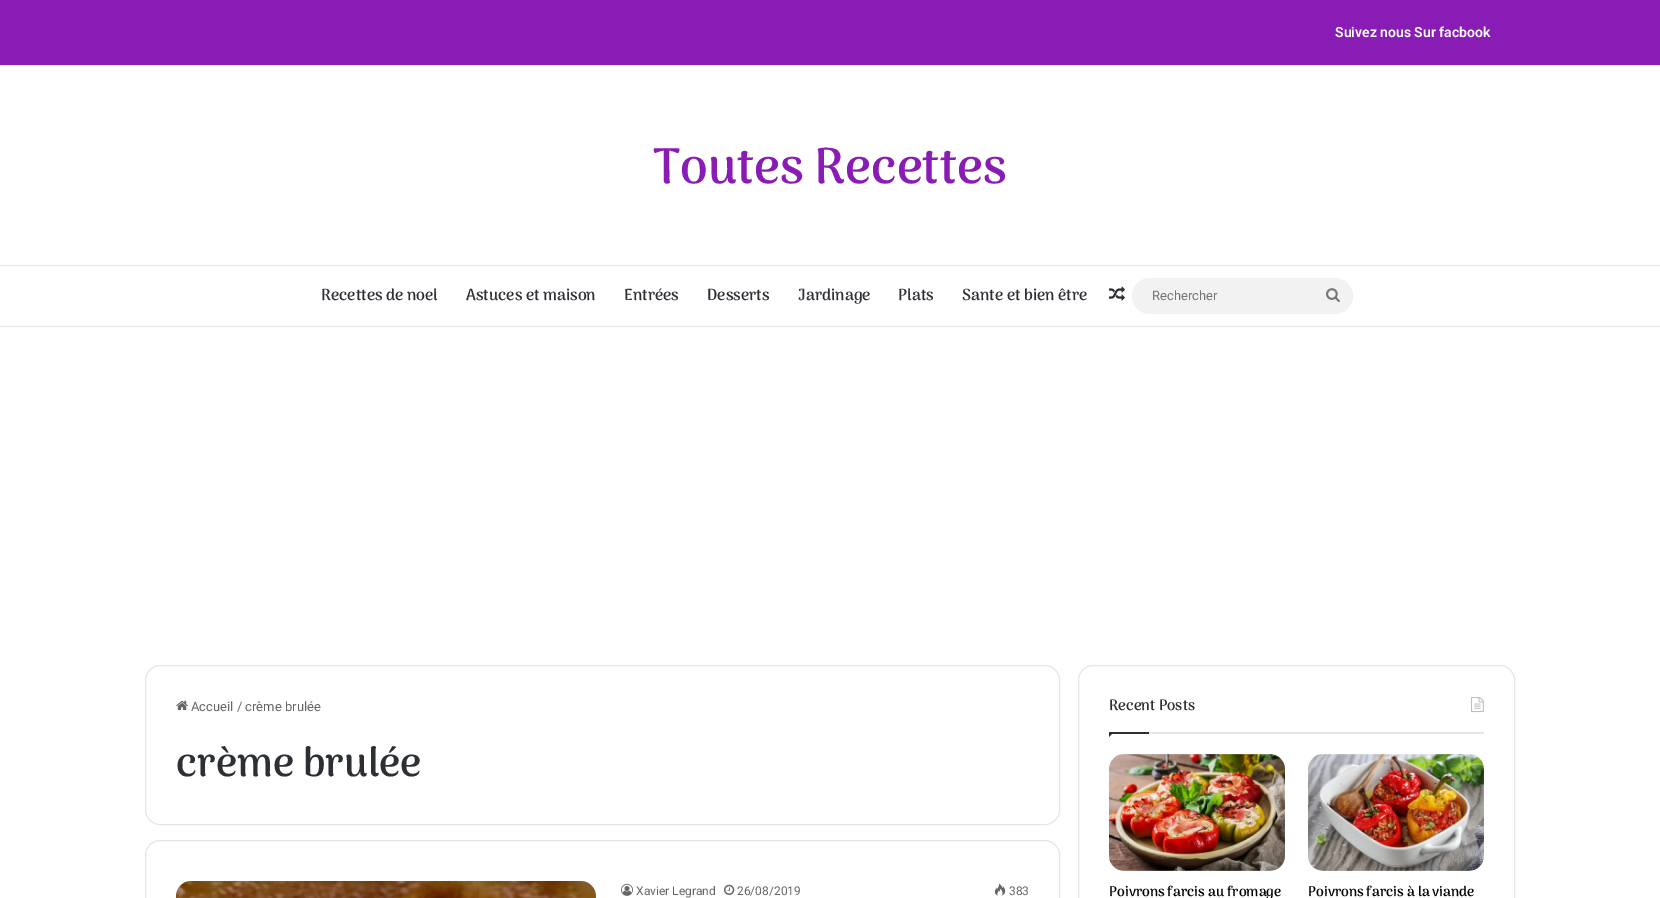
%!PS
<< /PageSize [1660 898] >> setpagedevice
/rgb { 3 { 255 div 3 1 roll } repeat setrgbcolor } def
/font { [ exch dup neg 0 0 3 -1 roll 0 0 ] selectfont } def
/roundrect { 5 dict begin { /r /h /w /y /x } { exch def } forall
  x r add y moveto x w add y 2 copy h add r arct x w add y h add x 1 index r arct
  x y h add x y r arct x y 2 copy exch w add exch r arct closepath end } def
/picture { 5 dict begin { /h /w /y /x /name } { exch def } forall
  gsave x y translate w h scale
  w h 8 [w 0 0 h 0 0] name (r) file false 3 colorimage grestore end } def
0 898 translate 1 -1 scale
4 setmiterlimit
137 28 181 rgb
0 0 1660 898 rectfill
[
  [0 65 1660 833 255 255 255]
  [0 265 1660 1 230 230 230]
  [0 326 1660 1 230 230 230]
] { aload pop rgb rectfill } forall
(img/1.rgb) 1109 286 16 15 picture
242 242 242 rgb
1132 278 221 36 18 roundrect fill
(img/2.rgb) 1326 288 14 14 picture
230 230 230 rgb
145.5 665.5 914 159 14.5 roundrect stroke
(img/3.rgb) 176 700 12 11 picture
145.5 840.5 914 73 14.5 roundrect stroke
(img/4.rgb) 176 881 420 17 picture
(img/5.rgb) 621 883 12 13 picture
(img/6.rgb) 724 884 11 11 picture
(img/7.rgb) 994 883 12 13 picture
1078.5 665.5 436 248 14.5 roundrect stroke
1149 732 335 2 rectfill
(img/8.rgb) 1471 697 13 16 picture
44 47 52 rgb
1109 732 moveto 1114 732 lineto 1109 737 lineto closepath fill
1109 732 40 2 rectfill
(img/9.rgb) 1109 754 176 117 picture
(img/10.rgb) 1308 754 176 117 picture
/Roboto-SemiBold 14 font
255 255 255 rgb
1335 37 moveto (Suivez nous Sur facbook) show
/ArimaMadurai-Bold 50 font
137 28 181 rgb
653 183 moveto (Toutes Recettes) show
/ArimaMadurai-Bold 16 font
44 47 52 rgb
[
  [(Recettes de noel) 321 300]
  [(Astuces et maison) 466 300]
  [(Entrées) 624 300]
  [(Desserts) 707 300]
  [(Jardinage) 798 300]
  [(Plats) 898 300]
  [(Sante et bien être) 962 300]
] { aload pop moveto show } forall
/Roboto-Regular 13 font
117 117 117 rgb
1152 300 moveto (Rechercher) show
102 102 102 rgb
191 711 moveto (Accueil / crème brulée) show
/ArimaMadurai-Bold 41 font
44 47 52 rgb
176 776 moveto (crème brulée) show
/Roboto-Regular 12 font
102 102 102 rgb
[
  [(Xavier Legrand) 636 895]
  [(26/08/2019) 737 895]
  [(383) 1009 895]
] { aload pop moveto show } forall
/ArimaMadurai-Bold 15 font
44 47 52 rgb
1109 710 moveto (Recent Posts) show
/ArimaMadurai-Bold 14 font
0 0 0 rgb
1109 896 moveto (Poivrons farcis au fromage) show
1308 896 moveto (Poivrons farcis à la viande) show
showpage
